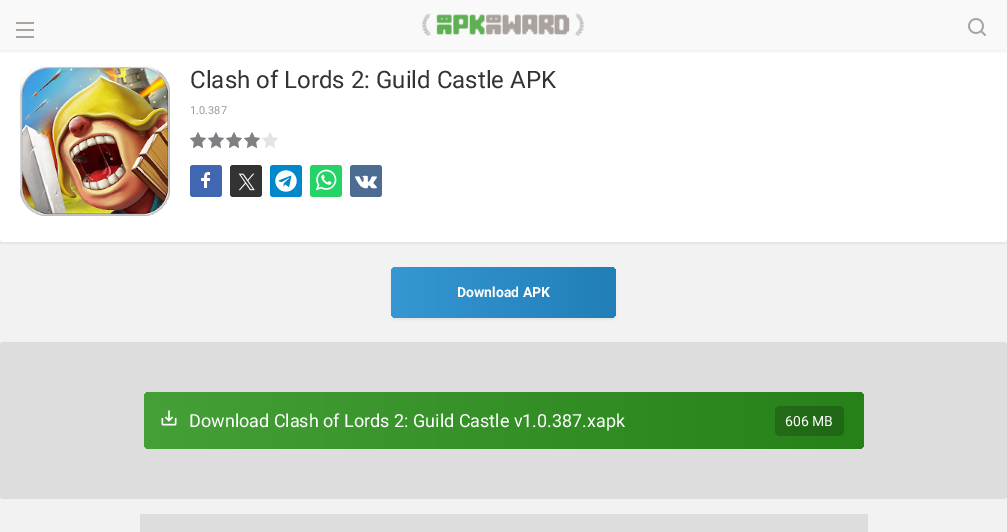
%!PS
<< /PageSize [1007 532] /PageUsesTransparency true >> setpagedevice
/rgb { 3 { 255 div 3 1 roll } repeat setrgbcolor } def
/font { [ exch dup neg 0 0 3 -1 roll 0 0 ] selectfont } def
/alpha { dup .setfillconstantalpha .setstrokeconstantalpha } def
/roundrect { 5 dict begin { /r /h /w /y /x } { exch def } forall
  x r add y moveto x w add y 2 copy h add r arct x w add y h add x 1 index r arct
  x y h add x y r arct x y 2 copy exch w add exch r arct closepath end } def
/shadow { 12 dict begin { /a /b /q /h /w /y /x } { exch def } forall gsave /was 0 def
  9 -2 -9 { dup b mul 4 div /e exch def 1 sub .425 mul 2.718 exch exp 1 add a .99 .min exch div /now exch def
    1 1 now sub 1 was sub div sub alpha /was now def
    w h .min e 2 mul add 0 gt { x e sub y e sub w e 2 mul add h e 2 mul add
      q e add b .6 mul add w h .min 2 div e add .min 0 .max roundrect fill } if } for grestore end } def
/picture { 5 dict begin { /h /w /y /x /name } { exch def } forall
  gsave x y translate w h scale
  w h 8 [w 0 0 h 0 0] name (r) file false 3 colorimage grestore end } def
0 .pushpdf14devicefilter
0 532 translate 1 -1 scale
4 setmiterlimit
242 242 242 rgb
0 0 1007 532 rectfill
0 0 0 rgb
0 48 1007 196 0 1 0.05 shadow
255 255 255 rgb
0 46 1007 196 3 roundrect fill
0 0 0 rgb
0 2 1007 50 0 1 0.05 shadow
[
  [0 0 1007 50 249 249 249]
  [16 22 18 2 170 162 158]
  [16 29 18 2 170 162 158]
  [16 36 18 2 170 162 158]
] { aload pop rgb rectfill } forall
(img/1.rgb) 421 13 164 23 picture
(img/2.rgb) 968 18 18 18 picture
(img/3.rgb) 20 66 150 150 picture
(img/4.rgb) 190 132 16 16 picture
(img/4.rgb) 208 132 16 16 picture
(img/4.rgb) 226 132 16 16 picture
(img/4.rgb) 244 132 16 16 picture
(img/5.rgb) 262 132 16 16 picture
66 103 178 rgb
190 165 32 32 3 roundrect fill
(img/6.rgb) 201 172 9 16 picture
51 51 51 rgb
230 165 32 32 3 roundrect fill
(img/7.rgb) 238 173 17 18 picture
0 136 204 rgb
270 165 32 32 3 roundrect fill
(img/8.rgb) 275 170 22 22 picture
37 211 102 rgb
310 165 32 32 3 roundrect fill
(img/9.rgb) 315 169 22 22 picture
76 108 145 rgb
350 165 32 32 3 roundrect fill
(img/10.rgb) 355 175 22 14 picture
0 0 0 rgb
391 269 225 51 5 1 0.05 shadow
gsave 391 267 225 51 5 roundrect clip newpath
<< /ShadingType 2 /ColorSpace /DeviceRGB /Coords [391 293 616 293] /Extend [true true] /Function << /FunctionType 2 /Domain [0 1] /C0 [0.212 0.592 0.827] /C1 [0.129 0.494 0.718] /N 1 >> >> shfill grestore
221 221 221 rgb
0 342 1007 157 3 roundrect fill
gsave 144 392 720 57 5 roundrect clip newpath
<< /ShadingType 2 /ColorSpace /DeviceRGB /Coords [144 421 864 421] /Extend [true true] /Function << /FunctionType 2 /Domain [0 1] /C0 [0.271 0.627 0.216] /C1 [0.153 0.506 0.098] /N 1 >> >> shfill grestore
(img/11.rgb) 161 410 16 16 picture
0.2 alpha
0 0 0 rgb
775 406 69 30 5 roundrect fill
1 alpha
221 221 221 rgb
140 514 728 18 rectfill
/Roboto-Regular 24 font
51 51 51 rgb
190 88 moveto (Clash of Lords 2: Guild Castle APK) show
/Roboto-Regular 11 font
153 153 153 rgb
190 114 moveto (1.0.387) show
/Roboto-Bold 14 font
255 255 255 rgb
457 297 moveto (Download APK) show
/Roboto-Regular 18 font
189 427 moveto (Download Clash of Lords 2: Guild Castle v1.0.387.xapk) show
/Roboto-Regular 14 font
785 426 moveto (606 MB) show
.poppdf14devicefilter showpage
